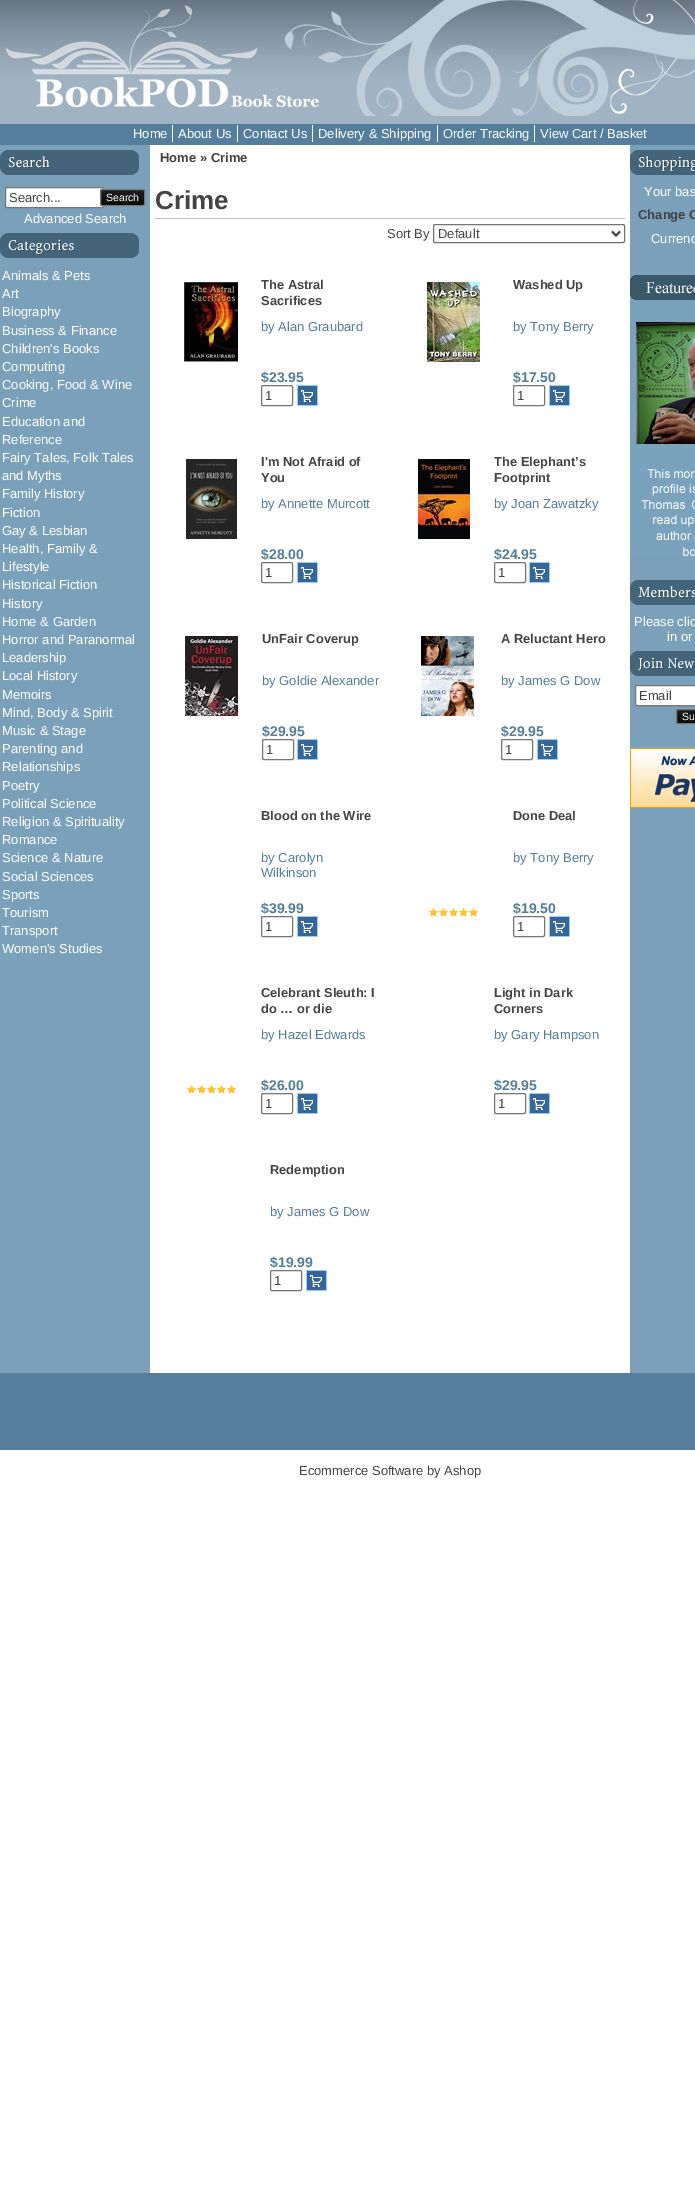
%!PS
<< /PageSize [695 2200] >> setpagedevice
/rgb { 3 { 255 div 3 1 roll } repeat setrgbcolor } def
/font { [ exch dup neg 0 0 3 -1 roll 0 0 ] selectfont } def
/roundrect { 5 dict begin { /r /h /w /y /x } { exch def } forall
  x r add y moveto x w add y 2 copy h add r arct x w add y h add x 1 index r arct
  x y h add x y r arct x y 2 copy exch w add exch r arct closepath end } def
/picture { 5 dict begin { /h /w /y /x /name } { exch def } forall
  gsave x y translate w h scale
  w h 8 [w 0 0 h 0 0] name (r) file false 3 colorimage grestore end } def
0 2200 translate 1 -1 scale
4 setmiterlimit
255 255 255 rgb
0 0 695 2200 rectfill
159 179 196 rgb
0 116 695 8 rectfill
(img/1.rgb) 0 0 695 116 picture
[
  [0 124 695 21 84 126 155]
  [172 125 1 17 255 255 255]
  [237 125 1 17 255 255 255]
  [312 125 1 17 255 255 255]
  [437 125 1 17 255 255 255]
  [534 125 1 17 255 255 255]
  [0 145 150 1228 123 160 185]
] { aload pop rgb rectfill } forall
(img/2.rgb) 0 150 139 25 picture
255 255 255 rgb
5.5 187.5 98 20 1.5 roundrect gsave fill grestore
118 118 118 rgb
stroke
0 0 0 rgb
100 189 45 17 2 roundrect fill
(img/3.rgb) 100 189 45 17 picture
119 119 119 rgb
100.5 189.5 44 16 1.5 roundrect stroke
(img/4.rgb) 0 233 139 25 picture
192 192 192 rgb
155 218 470 1 rectfill
118 118 118 rgb
433.5 224.5 191 18 1.5 roundrect stroke
68 68 68 rgb
2 setlinewidth
612 231.5 moveto 616 235.5 lineto 620 231.5 lineto stroke
(img/5.rgb) 184 282 54 80 picture
118 118 118 rgb
1 setlinewidth
261.5 385.5 31 20 1.5 roundrect stroke
(img/6.rgb) 297 385 21 21 picture
(img/7.rgb) 427 282 53 80 picture
513.5 385.5 31 20 1.5 roundrect stroke
(img/6.rgb) 549 385 21 21 picture
(img/8.rgb) 186 459 51 80 picture
261.5 562.5 31 20 1.5 roundrect stroke
(img/6.rgb) 297 562 21 21 picture
(img/9.rgb) 418 459 52 80 picture
494.5 562.5 31 20 1.5 roundrect stroke
(img/6.rgb) 529 562 21 21 picture
(img/10.rgb) 185 636 53 80 picture
262.5 739.5 31 20 1.5 roundrect stroke
(img/6.rgb) 297 739 21 21 picture
(img/11.rgb) 421 636 53 80 picture
501.5 739.5 31 20 1.5 roundrect stroke
(img/6.rgb) 537 739 21 21 picture
261.5 916.5 31 20 1.5 roundrect stroke
(img/6.rgb) 297 916 21 21 picture
(img/12.rgb) 429 908 9 9 picture
(img/12.rgb) 439 908 9 9 picture
(img/12.rgb) 449 908 9 9 picture
(img/12.rgb) 459 908 9 9 picture
(img/12.rgb) 469 908 9 9 picture
513.5 916.5 31 20 1.5 roundrect stroke
(img/6.rgb) 549 916 21 21 picture
(img/12.rgb) 187 1085 9 9 picture
(img/12.rgb) 197 1085 9 9 picture
(img/12.rgb) 207 1085 9 9 picture
(img/12.rgb) 217 1085 9 9 picture
(img/12.rgb) 227 1085 9 9 picture
261.5 1093.5 31 20 1.5 roundrect stroke
(img/6.rgb) 297 1093 21 21 picture
494.5 1093.5 31 20 1.5 roundrect stroke
(img/6.rgb) 529 1093 21 21 picture
270.5 1270.5 31 20 1.5 roundrect stroke
(img/6.rgb) 306 1270 21 21 picture
123 160 185 rgb
630 145 65 1228 rectfill
(img/13.rgb) 630 150 65 25 picture
(img/14.rgb) 630 275 65 281 picture
(img/15.rgb) 630 580 65 25 picture
(img/16.rgb) 630 651 65 25 picture
255 255 255 rgb
635.5 685.5 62 20 1.5 roundrect gsave fill grestore
118 118 118 rgb
stroke
0 0 0 rgb
676 709 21 15 2 roundrect fill
(img/17.rgb) 676 709 19 15 picture
119 119 119 rgb
676.5 709.5 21 14 1.5 roundrect stroke
(img/18.rgb) 630 748 65 60 picture
84 126 155 rgb
0 1373 695 77 rectfill
/LiberationSans-Regular 13 font
255 255 255 rgb
[
  [(Home) 133 138]
  [(About Us) 178 138]
  [(Contact Us) 243 138]
  [(Delivery & Shipping) 318 138]
  [(Order Tracking) 443 138]
  [(View Cart / Basket) 540 138]
] { aload pop moveto show } forall
68 68 68 rgb
9 202 moveto (Search...) show
/LiberationSans-Regular 10.5 font
255 255 255 rgb
106 201 moveto (Search) show
/LiberationSans-Regular 13 font
[
  [(Advanced Search) 24 223]
  [(Animals & Pets) 2 280]
  [(Art) 2 298]
  [(Biography) 2 316]
  [(Business & Finance) 2 335]
  [(Children's Books) 2 353]
  [(Computing) 2 371]
  [(Cooking, Food & Wine) 2 389]
  [(Crime) 2 407]
  [(Education and) 2 426]
  [(Reference) 2 444]
  [(Fairy Tales, Folk Tales) 2 462]
  [(and Myths) 2 480]
  [(Family History) 2 498]
  [(Fiction) 2 517]
  [(Gay & Lesbian) 2 535]
  [(Health, Family &) 2 553]
  [(Lifestyle) 2 571]
  [(Historical Fiction) 2 589]
  [(History) 2 608]
  [(Home & Garden) 2 626]
  [(Horror and Paranormal) 2 644]
  [(Leadership) 2 662]
  [(Local History) 2 680]
  [(Memoirs) 2 699]
  [(Mind, Body & Spirit) 2 717]
  [(Music & Stage) 2 735]
  [(Parenting and) 2 753]
  [(Relationships) 2 771]
  [(Poetry) 2 790]
  [(Political Science) 2 808]
  [(Religion & Spirituality) 2 826]
  [(Romance) 2 844]
  [(Science & Nature) 2 862]
  [(Social Sciences) 2 881]
  [(Sports) 2 899]
  [(Tourism) 2 917]
  [(Transport) 2 935]
  [(Women's Studies) 2 953]
] { aload pop moveto show } forall
/LiberationSans-Bold 13 font
68 68 68 rgb
160 162 moveto (Home » Crime) show
/LiberationSans-Bold 26 font
155 209 moveto (Crime) show
/LiberationSans-Regular 13 font
387 238 moveto (Sort By) show
438 238 moveto (Default) show
/LiberationSans-Bold 12.9 font
261 289 moveto (The Astral) show
261 305 moveto (Sacrifices) show
/LiberationSans-Regular 13 font
84 126 155 rgb
261 331 moveto (by Alan Graubard) show
/LiberationSans-Bold 14 font
261 382 moveto ($23.95) show
/LiberationSans-Regular 13 font
68 68 68 rgb
265 400 moveto (1) show
/LiberationSans-Bold 12.9 font
513 289 moveto (Washed Up) show
/LiberationSans-Regular 13 font
84 126 155 rgb
513 331 moveto (by Tony Berry) show
/LiberationSans-Bold 14 font
513 382 moveto ($17.50) show
/LiberationSans-Regular 13 font
68 68 68 rgb
517 400 moveto (1) show
/LiberationSans-Bold 12.9 font
261 466 moveto (I'm Not Afraid of) show
261 482 moveto (You) show
/LiberationSans-Regular 13 font
84 126 155 rgb
261 508 moveto (by Annette Murcott) show
/LiberationSans-Bold 14 font
261 559 moveto ($28.00) show
/LiberationSans-Regular 13 font
68 68 68 rgb
265 577 moveto (1) show
/LiberationSans-Bold 12.9 font
494 466 moveto (The Elephant’s) show
494 482 moveto (Footprint) show
/LiberationSans-Regular 13 font
84 126 155 rgb
494 508 moveto (by Joan Zawatzky) show
/LiberationSans-Bold 14 font
494 559 moveto ($24.95) show
/LiberationSans-Regular 13 font
68 68 68 rgb
498 577 moveto (1) show
/LiberationSans-Bold 12.9 font
262 643 moveto (UnFair Coverup) show
/LiberationSans-Regular 13 font
84 126 155 rgb
262 685 moveto (by Goldie Alexander) show
/LiberationSans-Bold 14 font
262 736 moveto ($29.95) show
/LiberationSans-Regular 13 font
68 68 68 rgb
266 754 moveto (1) show
/LiberationSans-Bold 12.9 font
501 643 moveto (A Reluctant Hero) show
/LiberationSans-Regular 13 font
84 126 155 rgb
501 685 moveto (by James G Dow) show
/LiberationSans-Bold 14 font
501 736 moveto ($29.95) show
/LiberationSans-Regular 13 font
68 68 68 rgb
505 754 moveto (1) show
/LiberationSans-Bold 12.9 font
261 820 moveto (Blood on the Wire) show
/LiberationSans-Regular 13 font
84 126 155 rgb
261 862 moveto (by Carolyn) show
261 877 moveto (Wilkinson) show
/LiberationSans-Bold 14 font
261 913 moveto ($39.99) show
/LiberationSans-Regular 13 font
68 68 68 rgb
265 931 moveto (1) show
/LiberationSans-Bold 12.9 font
513 820 moveto (Done Deal) show
/LiberationSans-Regular 13 font
84 126 155 rgb
513 862 moveto (by Tony Berry) show
/LiberationSans-Bold 14 font
513 913 moveto ($19.50) show
/LiberationSans-Regular 13 font
68 68 68 rgb
517 931 moveto (1) show
/LiberationSans-Bold 12.9 font
261 997 moveto (Celebrant Sleuth: I) show
261 1013 moveto (do … or die) show
/LiberationSans-Regular 13 font
84 126 155 rgb
261 1039 moveto (by Hazel Edwards) show
/LiberationSans-Bold 14 font
261 1090 moveto ($26.00) show
/LiberationSans-Regular 13 font
68 68 68 rgb
265 1108 moveto (1) show
/LiberationSans-Bold 12.9 font
494 997 moveto (Light in Dark) show
494 1013 moveto (Corners) show
/LiberationSans-Regular 13 font
84 126 155 rgb
494 1039 moveto (by Gary Hampson) show
/LiberationSans-Bold 14 font
494 1090 moveto ($29.95) show
/LiberationSans-Regular 13 font
68 68 68 rgb
498 1108 moveto (1) show
/LiberationSans-Bold 12.9 font
270 1174 moveto (Redemption) show
/LiberationSans-Regular 13 font
84 126 155 rgb
270 1216 moveto (by James G Dow) show
/LiberationSans-Bold 14 font
270 1267 moveto ($19.99) show
/LiberationSans-Regular 13 font
68 68 68 rgb
274 1285 moveto (1) show
255 255 255 rgb
644 196 moveto (Your bas) show
/LiberationSans-Bold 13 font
68 68 68 rgb
638 219 moveto (Change C) show
/LiberationSans-Regular 13 font
255 255 255 rgb
[
  [(Currenc) 651 243]
  [(Please clic) 634 626]
  [(in or) 667 641]
] { aload pop moveto show } forall
68 68 68 rgb
639 700 moveto (Email) show
/LiberationSans-Regular 10.5 font
255 255 255 rgb
682 720 moveto (Su) show
/LiberationSans-Regular 13 font
68 68 68 rgb
299 1475 moveto (Ecommerce Software by Ashop) show
showpage
